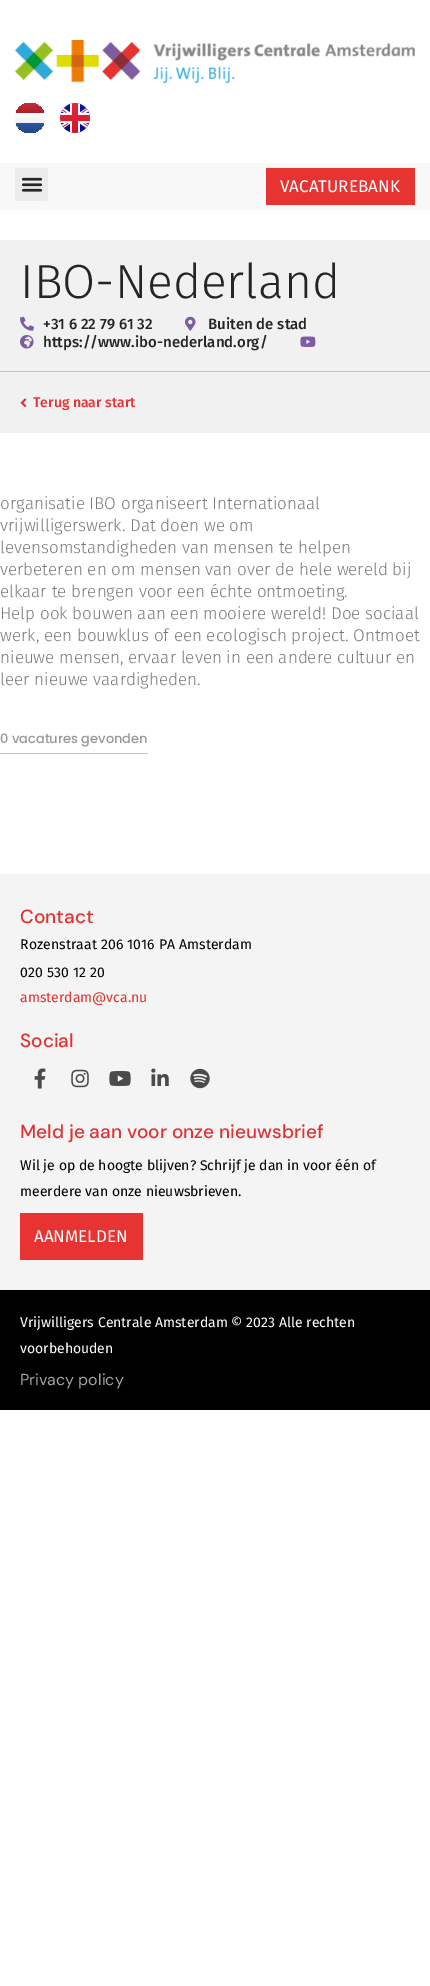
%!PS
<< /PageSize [430 1986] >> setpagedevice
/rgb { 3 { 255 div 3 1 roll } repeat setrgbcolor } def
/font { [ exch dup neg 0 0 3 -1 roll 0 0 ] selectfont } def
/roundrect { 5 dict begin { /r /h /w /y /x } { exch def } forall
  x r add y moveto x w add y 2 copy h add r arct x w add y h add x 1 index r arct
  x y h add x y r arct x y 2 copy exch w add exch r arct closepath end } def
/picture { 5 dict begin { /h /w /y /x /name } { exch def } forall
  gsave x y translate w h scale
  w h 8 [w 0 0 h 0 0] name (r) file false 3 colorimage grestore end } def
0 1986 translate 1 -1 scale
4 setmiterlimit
255 255 255 rgb
0 0 430 1986 rectfill
(img/1.rgb) 15 40 400 43 picture
gsave
15 103 30 30 15 roundrect clip newpath
gsave 16 103 moveto 44 103 lineto 44 113 lineto 16 113 lineto closepath clip newpath
<< /ShadingType 2 /ColorSpace /DeviceRGB /Coords [30 103 30 113] /Extend [true true] /Function << /FunctionType 2 /Domain [0 1] /C0 [0.792 0.169 0.224] /C1 [0.675 0.122 0.173] /N 1 >> >> shfill grestore
gsave 15 113 moveto 45 113 lineto 45 123 lineto 15 123 lineto closepath clip newpath
<< /ShadingType 2 /ColorSpace /DeviceRGB /Coords [30 113 30 123] /Extend [true true] /Function << /FunctionType 2 /Domain [0 1] /C0 [1 1 1] /C1 [0.941 0.941 0.941] /N 1 >> >> shfill grestore
gsave 16 123 moveto 44 123 lineto 44 133 lineto 16 133 lineto closepath clip newpath
<< /ShadingType 2 /ColorSpace /DeviceRGB /Coords [30 123 30 133] /Extend [true true] /Function << /FunctionType 2 /Domain [0 1] /C0 [0.173 0.337 0.635] /C1 [0.141 0.282 0.537] /N 1 >> >> shfill grestore
grestore
(img/2.rgb) 60 103 30 30 picture
248 248 248 rgb
0 163 430 47 rectfill
236 236 236 rgb
15 168 33 33 3 roundrect fill
(img/3.rgb) 21 177 22 15 picture
[
  [266 168 149 37 231 51 49]
  [0 240 430 131 241 241 241]
  [0 371 430 1 196 196 196]
] { aload pop rgb rectfill } forall
(img/4.rgb) 20 316 14 15 picture
(img/5.rgb) 185 316 11 15 picture
(img/6.rgb) 20 335 14 14 picture
(img/7.rgb) 300 336 16 11 picture
241 241 241 rgb
0 372 430 61 rectfill
(img/8.rgb) 20 398 7 10 picture
196 196 196 rgb
0 753 148 1 rectfill
244 244 244 rgb
0 874 430 416 rectfill
(img/9.rgb) 34 1068 12 21 picture
(img/10.rgb) 71 1069 18 19 picture
(img/11.rgb) 109 1071 22 15 picture
(img/12.rgb) 151 1068 18 18 picture
(img/13.rgb) 190 1068 20 21 picture
231 51 49 rgb
20 1213 123 47 rectfill
0 0 0 rgb
0 1290 430 120 rectfill
/FiraSans-Regular 17 font
255 255 255 rgb
280 192 moveto (VACATUREBANK) show
/FiraSans-Light 48 font
38 37 37 rgb
20 298 moveto (IBO-Nederland) show
/FiraSans-Medium 15 font
[
  [(+31 6 22 79 61 32) 43 329]
  [(Buiten de stad) 208 329]
  [(https://www.ibo-nederland.org/) 43 347]
] { aload pop moveto show } forall
/FiraSans-Medium 14 font
230 50 52 rgb
33 407 moveto (Terug naar start) show
/FiraSans-Light 17 font
122 122 122 rgb
[
  [(organisatie IBO organiseert Internationaal) 0 509]
  [(vrijwilligerswerk. Dat doen we om) 0 531]
  [(levensomstandigheden van mensen te helpen) 0 553]
  [(verbeteren en om mensen van over de hele wereld bij) 0 575]
  [(elkaar te brengen voor een échte ontmoeting.) 0 597]
  [(Help ook bouwen aan een mooiere wereld! Doe sociaal) 0 619]
  [(werk, een bouwklus of een ecologisch project. Ontmoet) 0 641]
  [(nieuwe mensen, ervaar leven in een andere cultuur en) 0 663]
  [(leer nieuwe vaardigheden.) 0 685]
] { aload pop moveto show } forall
/Poppins-Medium 13 font
153 153 153 rgb
0 743 moveto (0 vacatures gevonden) show
/DMSans-Medium 19 font
224 50 48 rgb
20 923 moveto (Contact) show
/FiraSans-Regular 14 font
0 0 0 rgb
20 949 moveto 0.1 0 (Rozenstraat 206 1016 PA Amsterdam) ashow
20 977 moveto 0.1 0 (020 530 12 20) ashow
224 50 48 rgb
20 1002 moveto (amsterdam@vca.nu) show
/DMSans-Medium 19 font
20 1047 moveto (Social) show
20 1138 moveto (Meld je aan voor onze nieuwsbrief) show
/FiraSans-Regular 14 font
0 0 0 rgb
20 1170 moveto (Wil je op de hoogte blijven? Schrijf je dan in voor één of) show
20 1196 moveto (meerdere van onze nieuwsbrieven.) show
/FiraSans-Regular 17 font
255 255 255 rgb
34 1242 moveto (AANMELDEN) show
/FiraSans-Regular 14 font
20 1327 moveto (Vrijwilligers Centrale Amsterdam © 2023 Alle rechten) show
20 1353 moveto (voorbehouden) show
/DMSans-Regular 16 font
166 161 161 rgb
20 1385 moveto (Privacy policy) show
showpage
